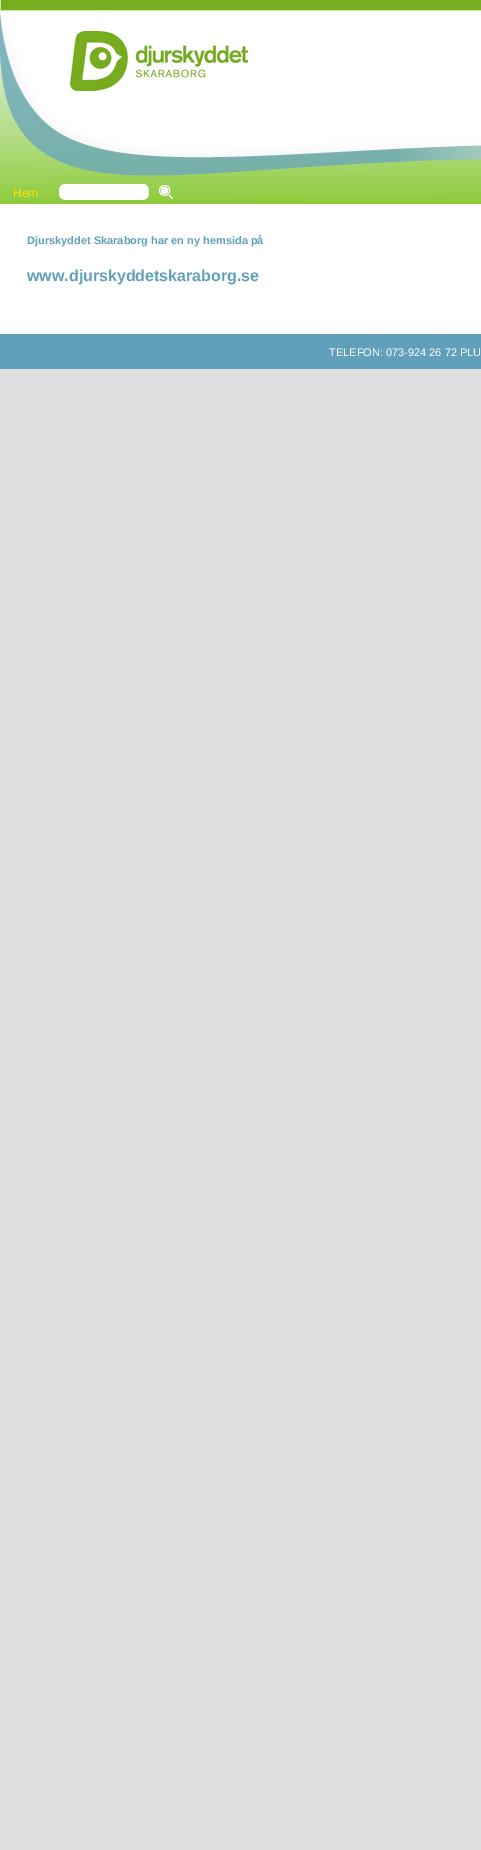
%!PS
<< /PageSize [481 1850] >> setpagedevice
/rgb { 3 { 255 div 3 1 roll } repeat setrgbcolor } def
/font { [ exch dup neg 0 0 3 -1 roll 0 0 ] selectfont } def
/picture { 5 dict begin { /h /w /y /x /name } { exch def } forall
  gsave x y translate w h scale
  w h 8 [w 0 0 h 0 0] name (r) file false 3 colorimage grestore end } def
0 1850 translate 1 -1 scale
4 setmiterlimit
222 222 222 rgb
0 0 481 1850 rectfill
[
  [0 11 481 323 255 255 255]
  [1 0 480 10 118 173 28]
  [0 10 481 1 203 232 161]
  [0 0 1 11 203 232 161]
] { aload pop rgb rectfill } forall
(img/1.rgb) 0 12 481 192 picture
(img/2.rgb) 70 31 178 60 picture
(img/3.rgb) 59 184 90 16 picture
255 255 255 rgb
143 184 3 1 rectfill
(img/4.rgb) 159 185 14 14 picture
97 160 187 rgb
0 334 481 35 rectfill
/LiberationSans-Regular 12 font
252 229 3 rgb
13 197 moveto (Hem) show
/LiberationSans-Bold 11 font
97 160 187 rgb
27 244 moveto (Djurskyddet Skaraborg har en ny hemsida på) show
/LiberationSans-Bold 16 font
27 281 moveto (www.djurskyddetskaraborg.se) show
/LiberationSans-Regular 11 font
255 255 255 rgb
329 356 moveto (TELEFON: 073-924 26 72 PLU) show
showpage
